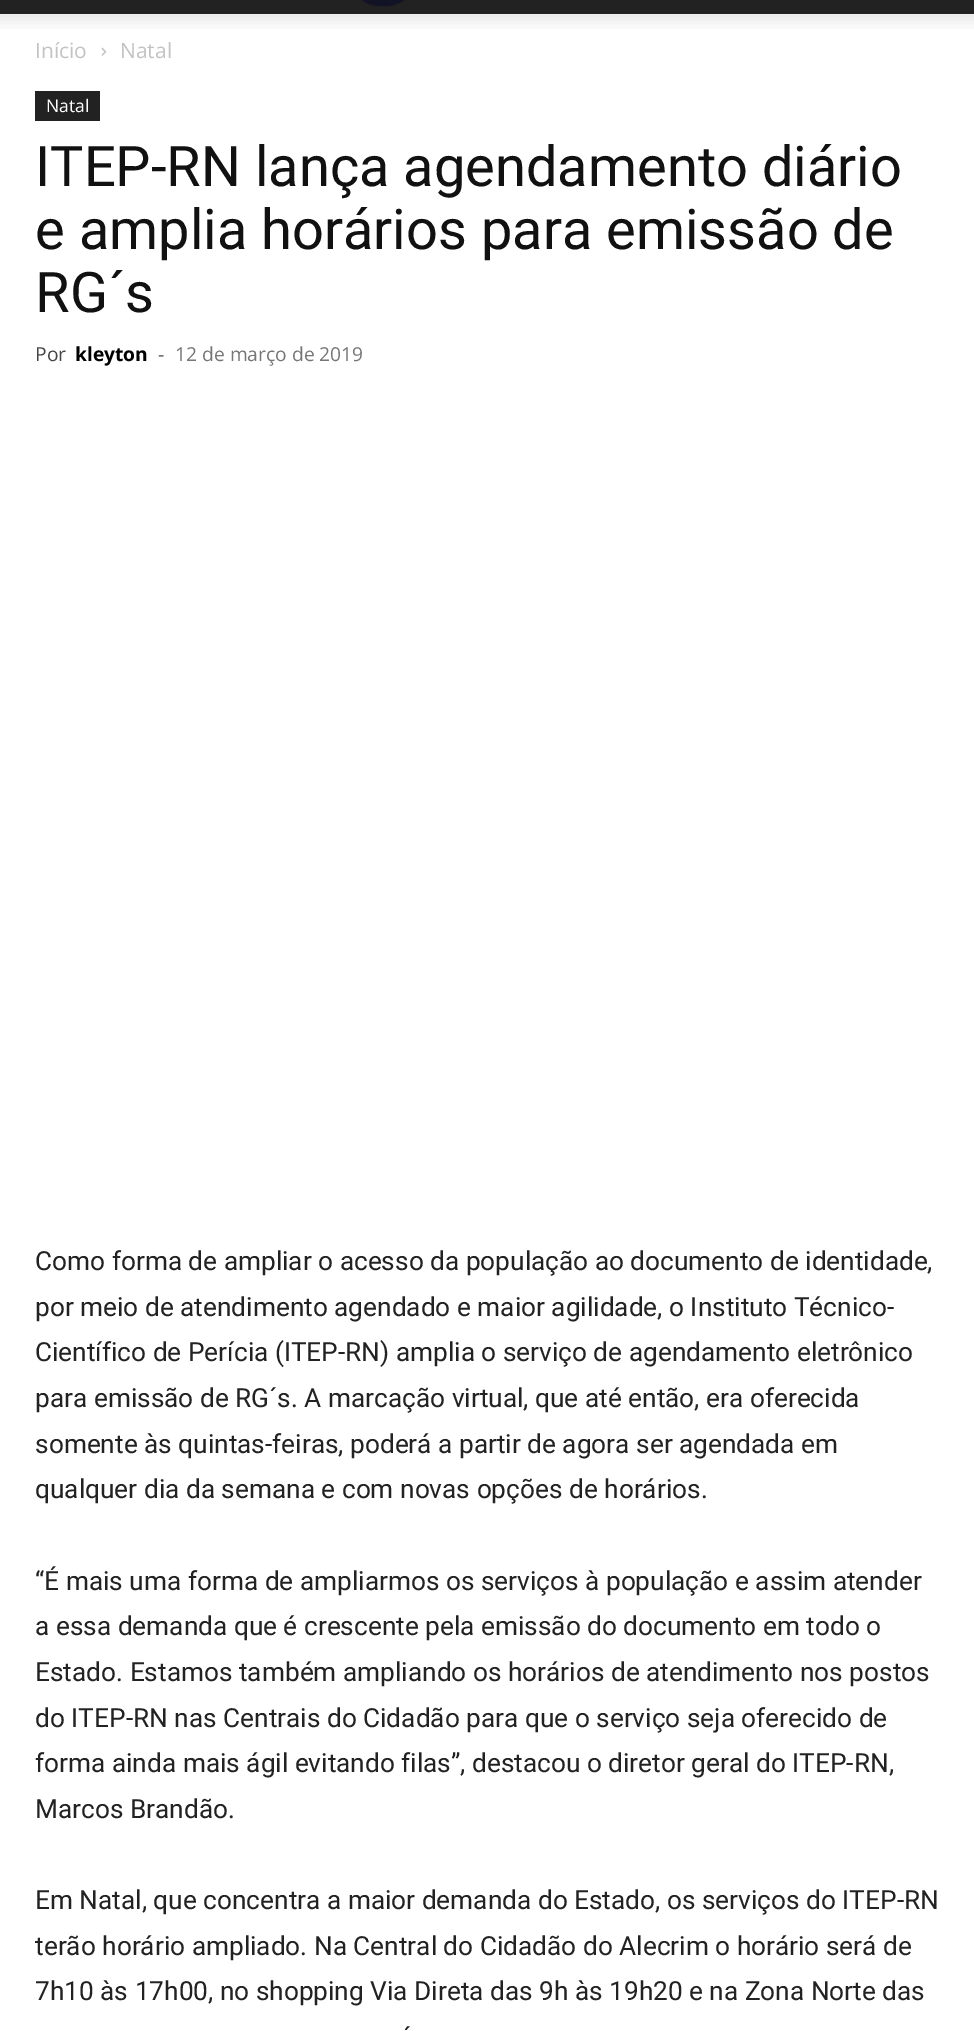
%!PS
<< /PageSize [974 2031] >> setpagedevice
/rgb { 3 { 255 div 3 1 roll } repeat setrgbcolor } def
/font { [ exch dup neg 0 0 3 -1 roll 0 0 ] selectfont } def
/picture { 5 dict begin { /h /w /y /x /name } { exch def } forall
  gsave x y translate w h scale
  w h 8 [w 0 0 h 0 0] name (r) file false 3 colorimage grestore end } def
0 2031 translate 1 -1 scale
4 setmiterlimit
255 255 255 rgb
0 0 974 2031 rectfill
34 34 34 rgb
0 0 974 14 rectfill
(img/1.rgb) 361 0 44 7 picture
(img/2.rgb) 0 14 974 15 picture
(img/3.rgb) 101 47 6 9 picture
35 91 65 30 rectfill
/OpenSans-Regular 21 font
195 195 195 rgb
35 58 moveto (Início) show
120 58 moveto (Natal) show
/OpenSans-Regular 17.5 font
255 255 255 rgb
46 112 moveto (Natal) show
/Roboto-Regular 56 font
17 17 17 rgb
[
  [(ITEP-RN lança agendamento diário) 35 186]
  [(e amplia horários para emissão de) 35 249]
  [(RG´s) 35 312]
] { aload pop moveto show } forall
/OpenSans-Regular 19.25 font
68 68 68 rgb
35 361 moveto (Por) show
/OpenSans-Bold 19.25 font
0 0 0 rgb
75 361 moveto (kleyton) show
/OpenSans-Regular 19.25 font
68 68 68 rgb
158 361 moveto (-) show
118 118 118 rgb
175 361 moveto (12 de março de 2019) show
/Roboto-Regular 26.25 font
34 34 34 rgb
[
  [(Como forma de ampliar o acesso da população ao documento de identidade,) 35 1270]
  [(por meio de atendimento agendado e maior agilidade, o Instituto Técnico-) 35 1316]
  [(Científico de Perícia \(ITEP-RN\) amplia o serviço de agendamento eletrônico) 35 1361]
  [(para emissão de RG´s. A marcação virtual, que até então, era oferecida) 35 1407]
  [(somente às quintas-feiras, poderá a partir de agora ser agendada em) 35 1453]
  [(qualquer dia da semana e com novas opções de horários.) 35 1498]
  [(“É mais uma forma de ampliarmos os serviços à população e assim atender) 35 1590]
  [(a essa demanda que é crescente pela emissão do documento em todo o) 35 1635]
  [(Estado. Estamos também ampliando os horários de atendimento nos postos) 35 1681]
  [(do ITEP-RN nas Centrais do Cidadão para que o serviço seja oferecido de) 35 1727]
  [(forma ainda mais ágil evitando filas”, destacou o diretor geral do ITEP-RN,) 35 1772]
  [(Marcos Brandão.) 35 1818]
  [(Em Natal, que concentra a maior demanda do Estado, os serviços do ITEP-RN) 35 1909]
  [(terão horário ampliado. Na Central do Cidadão do Alecrim o horário será de) 35 1955]
  [(7h10 às 17h00, no shopping Via Direta das 9h às 19h20 e na Zona Norte das) 35 2000]
  [(´) 403 2046]
] { aload pop moveto show } forall
showpage
